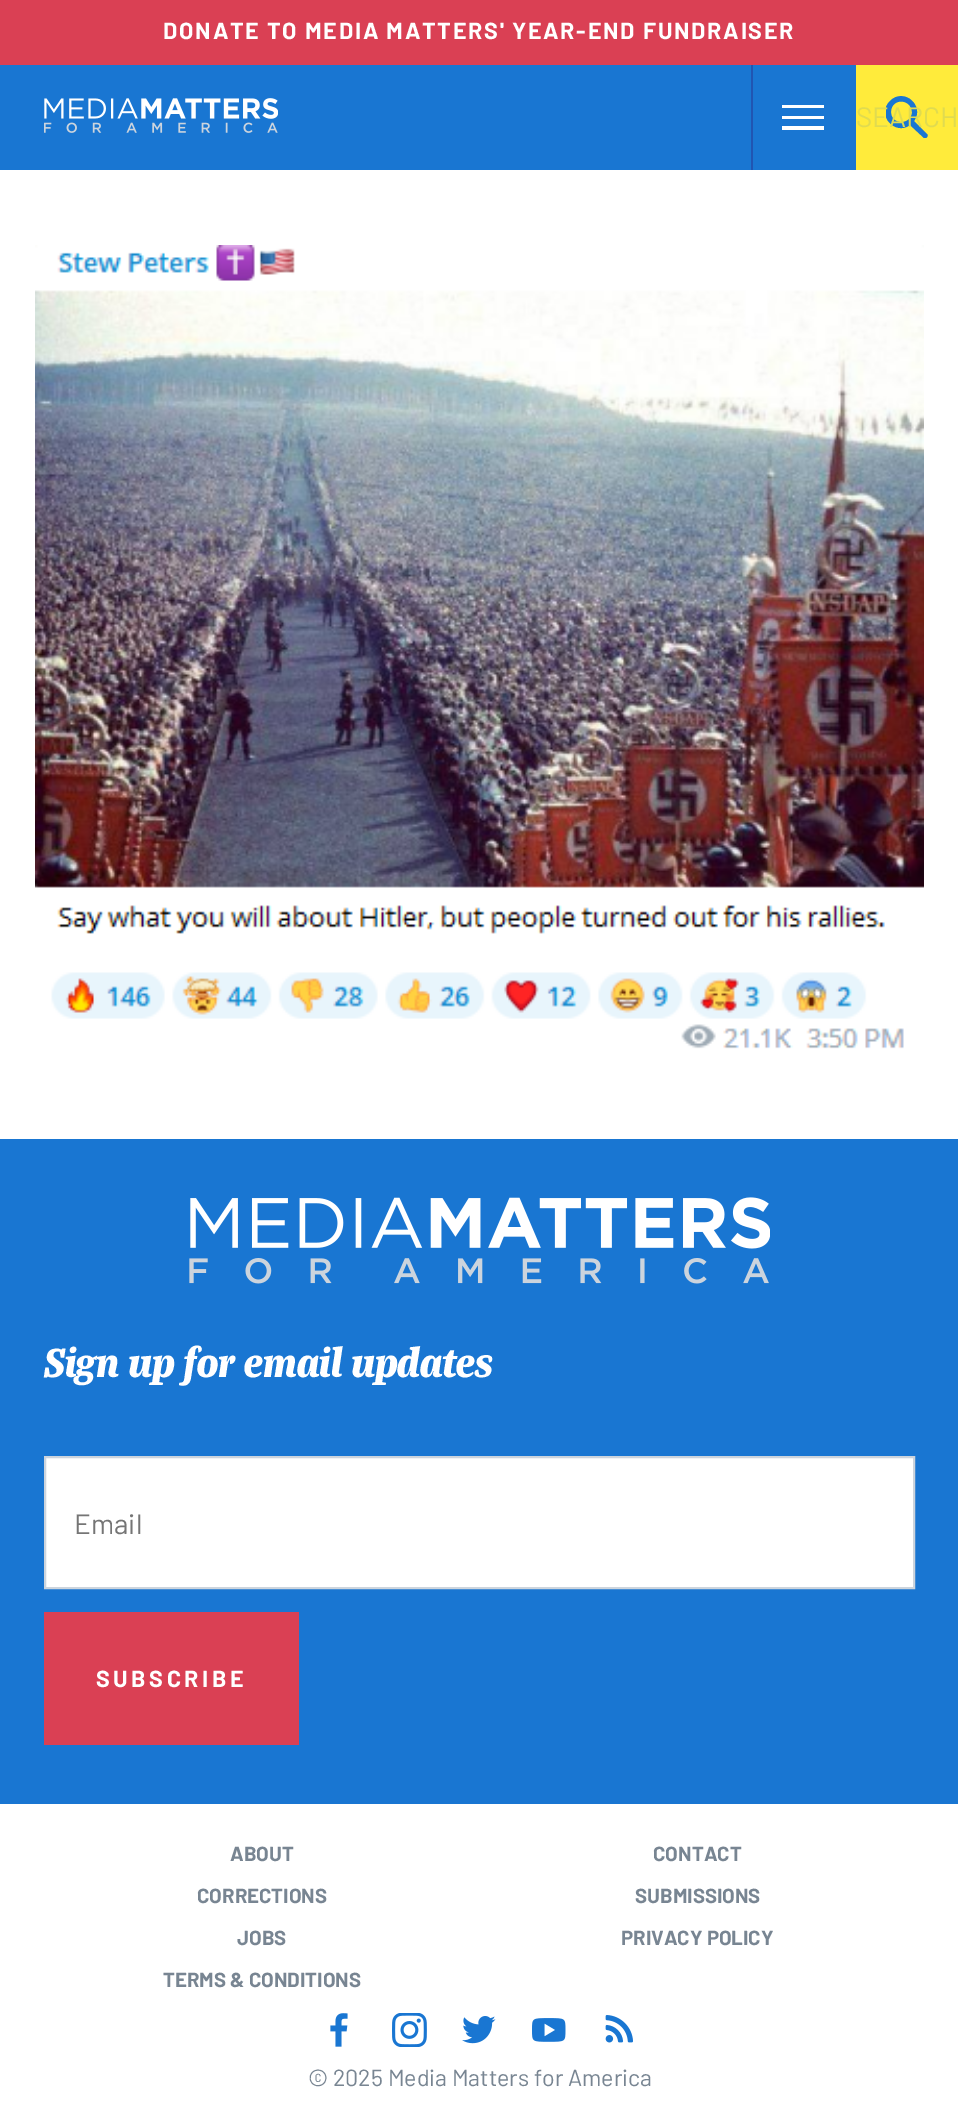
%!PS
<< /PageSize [958 2116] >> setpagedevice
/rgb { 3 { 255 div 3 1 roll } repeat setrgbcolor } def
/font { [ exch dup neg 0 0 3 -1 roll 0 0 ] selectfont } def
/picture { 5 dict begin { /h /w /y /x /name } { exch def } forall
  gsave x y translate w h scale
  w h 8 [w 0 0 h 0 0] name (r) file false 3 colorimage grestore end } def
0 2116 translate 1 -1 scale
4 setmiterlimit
255 255 255 rgb
0 0 958 2116 rectfill
218 64 84 rgb
0 0 958 65 rectfill
25 118 210 rgb
0 65 856 105 rectfill
(img/1.rgb) 44 98 234 35 picture
255 255 255 rgb
782 105 moveto 824 105 lineto 824 108 lineto 782 108 lineto closepath 782 116 moveto 824 116 lineto 824 119 lineto 782 119 lineto closepath 782 126 moveto 824 126 lineto 824 130 lineto 782 130 lineto closepath eofill
32 85 178 rgb
751 65 2 105 rectfill
255 235 59 rgb
856 65 102 105 rectfill
gsave
886 96 43 42 rectclip
25 118 210 rgb
891 112 moveto 891 98 911 98 912 112 curveto 912 125 891 126 891 112 curveto 927 134 moveto 914 121 lineto 925 106 904 87 890 101 curveto 876 115 895 136 910 125 curveto 924 138 lineto 926 139 929 136 927 134 curveto eofill
grestore
(img/2.rgb) 35 245 889 804 picture
25 118 210 rgb
0 1139 958 665 rectfill
(img/3.rgb) 189 1197 581 87 picture
255 255 255 rgb
45 1457 moveto 914 1457 lineto 914 1588 lineto 45 1588 lineto closepath gsave fill grestore
204 212 221 rgb
2 setlinewidth
stroke
218 64 84 rgb
44 1612 255 133 rectfill
(img/4.rgb) 330 2013 18 34 picture
(img/5.rgb) 392 2013 35 34 picture
(img/6.rgb) 462 2016 34 28 picture
(img/7.rgb) 532 2018 34 24 picture
(img/8.rgb) 605 2015 28 28 picture
/Barlow-Bold 23.25 font
255 255 255 rgb
163 39 moveto 1.75 0 (DONATE TO MEDIA MATTERS' YEAR-END FUNDRAISER) ashow
/Barlow-Regular 28 font
224 219 80 rgb
856 127 moveto (SEARCH) show
/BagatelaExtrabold-ExtraBoldItalic 43.6 font
255 255 255 rgb
44 1377 moveto (Sign up for email updates) show
/Barlow-Regular 28 font
117 117 117 rgb
74 1534 moveto (Email) show
/Barlow-Bold 23.25 font
255 255 255 rgb
96 1687 moveto 3.5 0 (SUBSCRIBE) ashow
/Barlow-Bold 20.4 font
120 133 146 rgb
[
  [(ABOUT) 230 1861]
  [(CONTACT) 653 1861]
  [(CORRECTIONS) 197 1903]
  [(SUBMISSIONS) 635 1903]
  [(JOBS) 237 1945]
  [(PRIVACY POLICY) 621 1945]
  [(TERMS & CONDITIONS) 163 1987]
] { aload pop moveto show } forall
/Barlow-Regular 23.25 font
308 2086 moveto (© 2025 Media Matters for America) show
showpage
